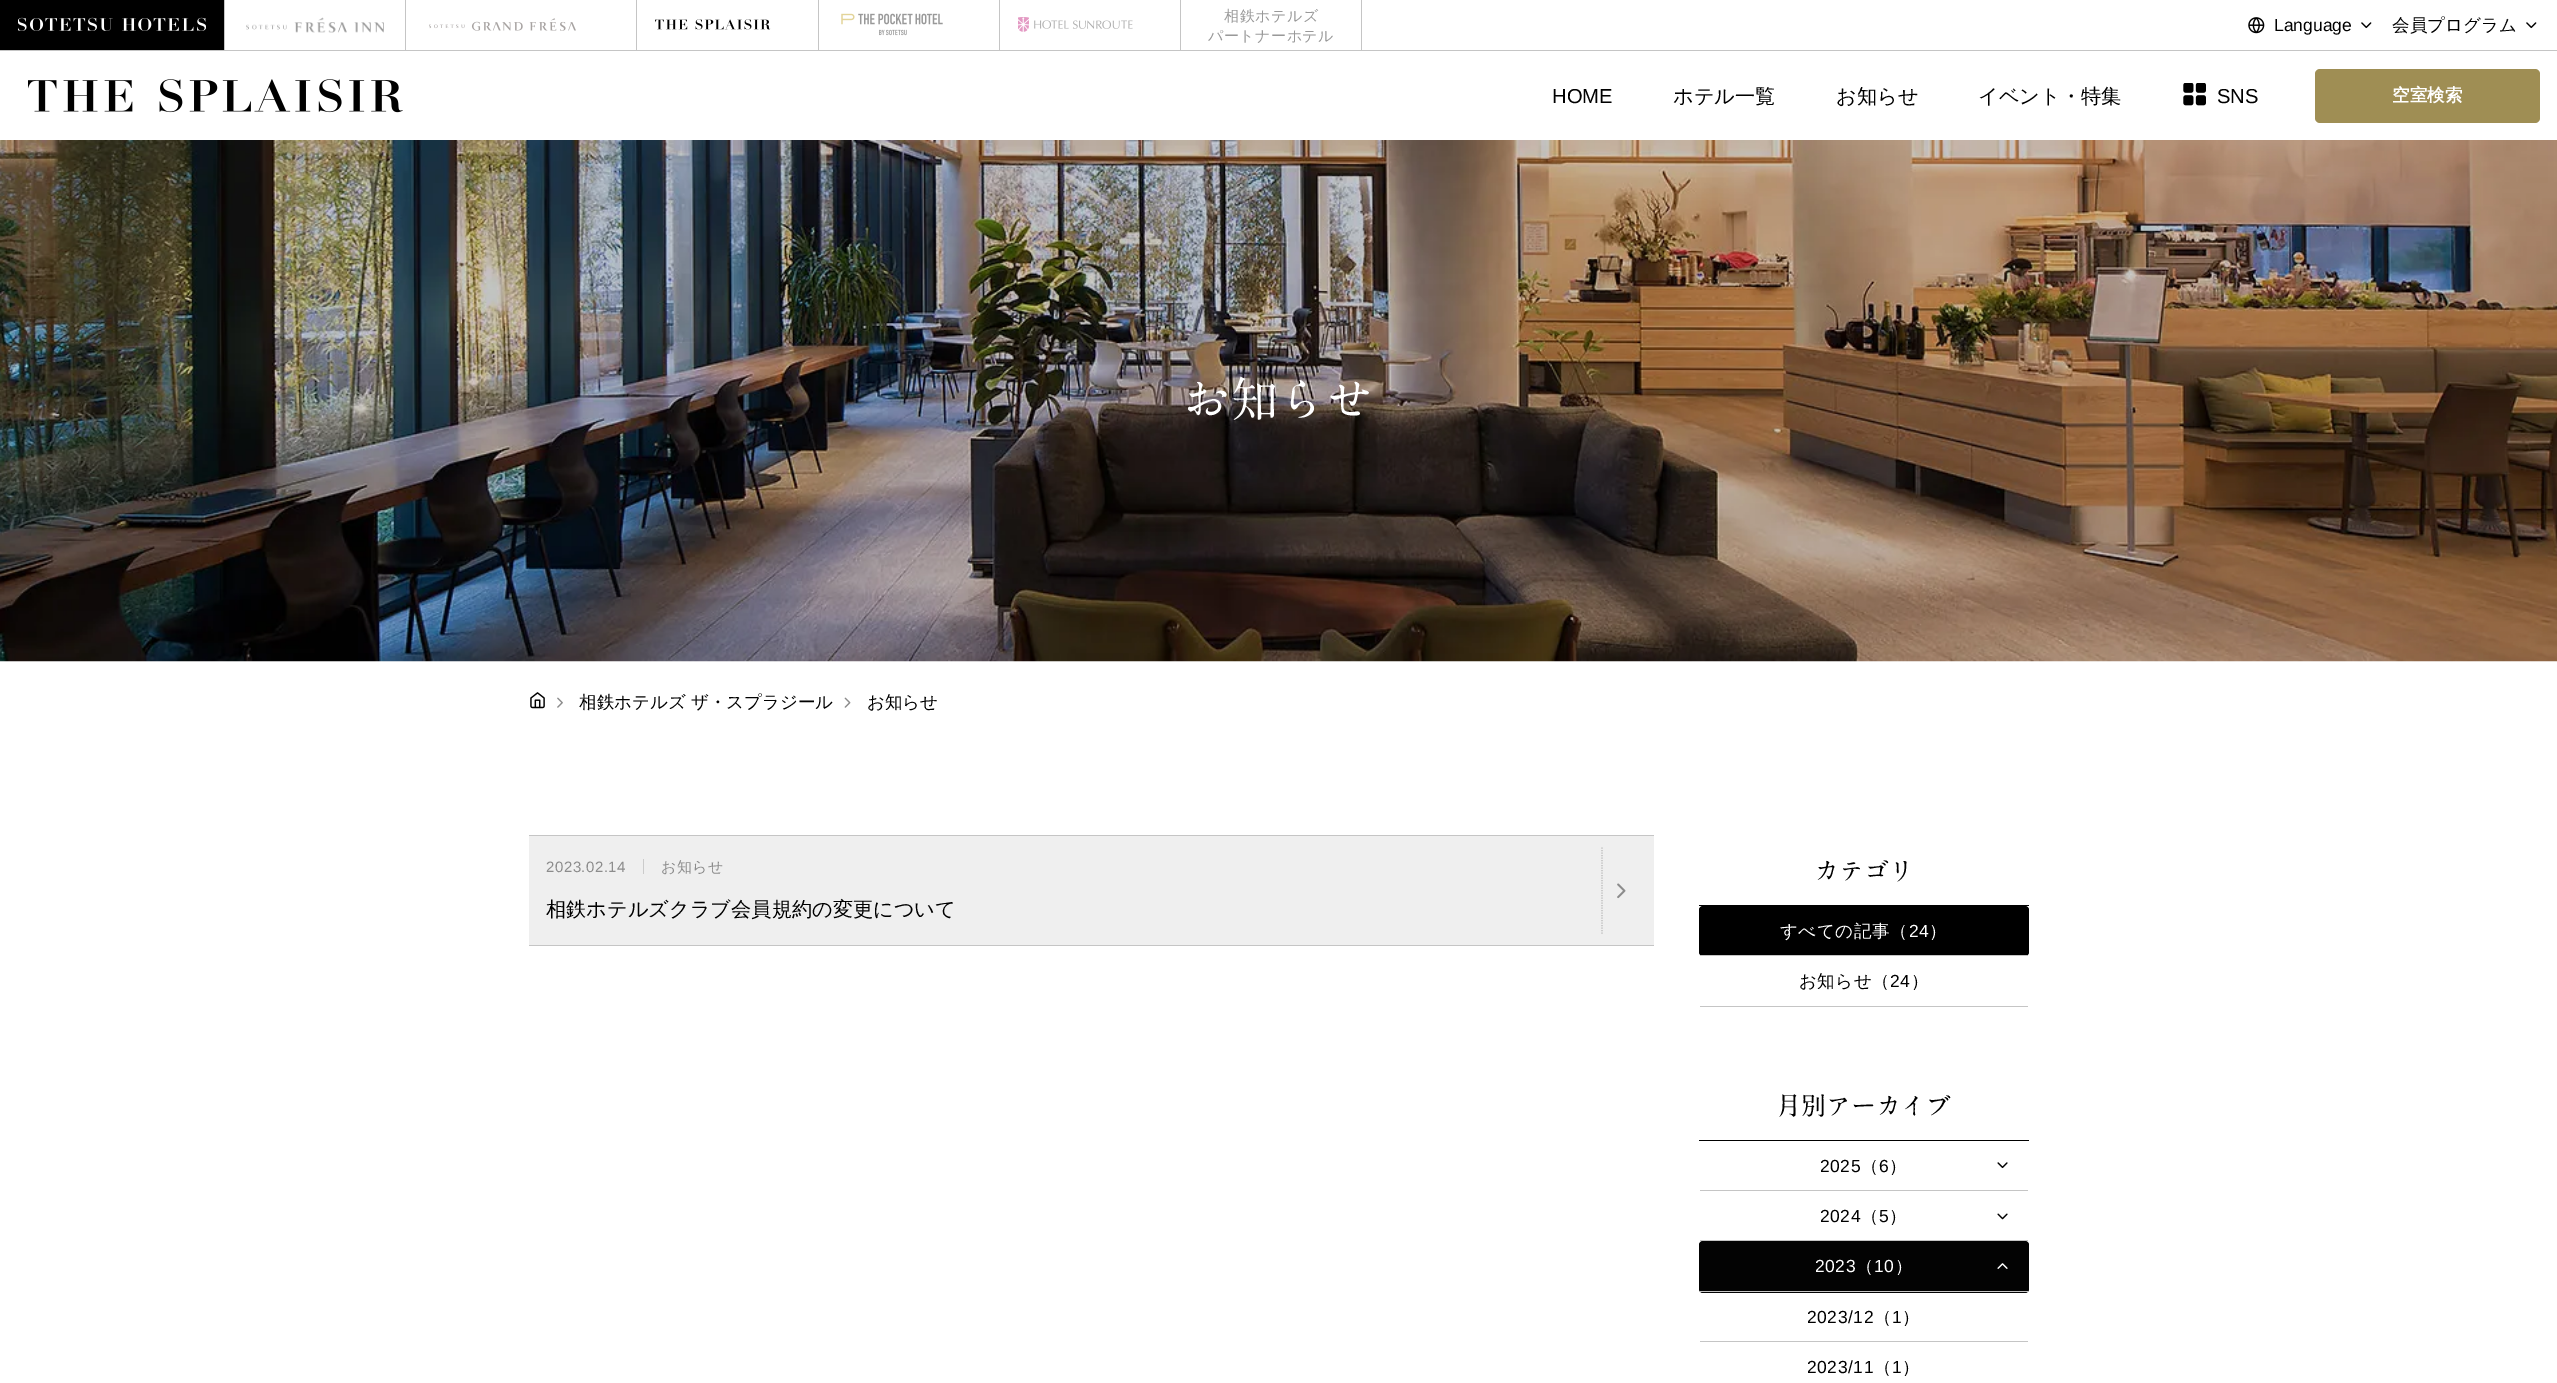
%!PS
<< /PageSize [2557 1383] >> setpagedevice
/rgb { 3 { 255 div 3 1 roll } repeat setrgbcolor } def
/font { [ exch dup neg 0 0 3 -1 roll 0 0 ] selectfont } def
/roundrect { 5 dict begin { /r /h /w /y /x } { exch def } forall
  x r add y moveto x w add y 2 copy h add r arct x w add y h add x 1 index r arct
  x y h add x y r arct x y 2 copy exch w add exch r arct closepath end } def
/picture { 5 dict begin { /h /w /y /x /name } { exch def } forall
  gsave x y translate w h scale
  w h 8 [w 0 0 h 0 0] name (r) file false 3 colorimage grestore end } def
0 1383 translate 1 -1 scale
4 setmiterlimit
255 255 255 rgb
0 0 2557 1383 rectfill
[
  [0 50 2557 1 197 197 197]
  [224 0 1 50 197 197 197]
  [0 0 224 50 0 0 0]
] { aload pop rgb rectfill } forall
(img/1.rgb) 18 17 188 14 picture
197 197 197 rgb
405 0 1 50 rectfill
(img/2.rgb) 246 17 138 16 picture
636 0 1 50 rectfill
(img/3.rgb) 429 18 147 13 picture
818 0 1 50 rectfill
(img/4.rgb) 655 19 116 11 picture
999 0 1 50 rectfill
(img/5.rgb) 841 13 102 23 picture
1180 0 1 50 rectfill
(img/6.rgb) 1018 17 115 15 picture
1361 0 1 50 rectfill
(img/7.rgb) 2248 17 17 17 picture
(img/8.rgb) 2361 22 11 7 picture
(img/8.rgb) 2526 22 11 7 picture
(img/9.rgb) 28 79 375 34 picture
(img/10.rgb) 2183 83 23 23 picture
159 142 84 rgb
2315 69 225 54 5 roundrect fill
(img/11.rgb) 0 140 2557 522 picture
(img/12.rgb) 530 692 15 17 picture
(img/13.rgb) 557 697 6 11 picture
(img/14.rgb) 844 697 7 11 picture
[
  [529 945 1125 1 197 197 197]
  [529 835 1125 1 197 197 197]
  [529 836 1125 109 239 239 239]
  [643 859 1 15 203 203 203]
] { aload pop rgb rectfill } forall
190 190 190 rgb
1.2 setlinewidth
[1.25 1.25] 0 setdash
1602 847.5 moveto 1602 934 lineto stroke
(img/15.rgb) 1617 883 9 16 picture
0 0 0 rgb
1699 905 330 1 rectfill
1699 906 330 50 4 roundrect fill
[
  [1700 955 328 1 197 197 197]
  [1700 1006 328 1 197 197 197]
  [1699 1140 330 1 0 0 0]
  [1700 1190 328 1 197 197 197]
] { aload pop rgb rectfill } forall
(img/16.rgb) 1997 1162 11 7 picture
1700 1240 328 1 rectfill
(img/17.rgb) 1997 1213 11 7 picture
3 3 3 rgb
1699 1241 330 52 4 roundrect fill
197 197 197 rgb
1700 1291 328 1 rectfill
(img/18.rgb) 1997 1263 11 6 picture
1700 1341 328 1 rectfill
/WenQuanYiZenHei-Medium 15 font
153 153 153 rgb
1224 21 moveto 0.5 0 (相鉄ホテルズ) ashow
1208 41 moveto 0.5 0 (パートナーホテル) ashow
/LiberationSans-Regular 17.5 font
0 0 0 rgb
2274 31 moveto (Language) show
/WenQuanYiZenHei-Medium 17.5 font
2392 31 moveto (会員プログラム) show
/LiberationSans-Regular 20.2 font
1552 103 moveto (HOME) show
/WenQuanYiZenHei-Medium 20.2 font
[
  [(ホテル一覧) 1673 103]
  [(お知らせ) 1836 103]
  [(イベント・特集) 1978 103]
] { aload pop moveto show } forall
/LiberationSans-Regular 20.2 font
2217 103 moveto (SNS) show
/WenQuanYiZenHei-Bold 17.5 font
255 255 255 rgb
2392 101 moveto (空室検索) show
/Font-Regular 47.5 font
1183 417 moveto (お知らせ) show
/WenQuanYiZenHei-Medium 17.5 font
0 0 0 rgb
579 708 moveto (相鉄ホテルズ ザ・スプラジール) show
867 708 moveto (お知らせ) show
/LiberationSans-Regular 15 font
140 140 140 rgb
546 872 moveto 0.5 0 (2023.02.14) ashow
/WenQuanYiZenHei-Medium 15 font
661 872 moveto 0.5 0 (お知らせ) ashow
/WenQuanYiZenHei-Medium 20.2 font
0 0 0 rgb
546 916 moveto (相鉄ホテルズクラブ会員規約の変更について) show
/Font-Regular 25 font
1814 880 moveto (カテゴリ) show
/WenQuanYiZenHei-Medium 17.5 font
255 255 255 rgb
1780 937 moveto 0.5 0 (すべての記事（) ashow
/LiberationSans-Regular 17.5 font
1909 937 moveto 0.5 0 (24) ashow
/WenQuanYiZenHei-Medium 17.5 font
1929 937 moveto 0.5 0 (）) ashow
0 0 0 rgb
1799 987 moveto 0.5 0 (お知らせ（) ashow
/LiberationSans-Regular 17.5 font
1890 987 moveto 0.5 0 (24) ashow
/WenQuanYiZenHei-Medium 17.5 font
1911 987 moveto 0.5 0 (）) ashow
/Font-Regular 25 font
1776 1115 moveto (月別アーカイブ) show
/LiberationSans-Regular 17.5 font
1820 1172 moveto 0.5 0 (2025) ashow
/WenQuanYiZenHei-Medium 17.5 font
1861 1172 moveto 0.5 0 (（) ashow
/LiberationSans-Regular 17.5 font
1879 1172 moveto 0.5 0 (6) ashow
/WenQuanYiZenHei-Medium 17.5 font
1889 1172 moveto 0.5 0 (）) ashow
/LiberationSans-Regular 17.5 font
1820 1222 moveto 0.5 0 (2024) ashow
/WenQuanYiZenHei-Medium 17.5 font
1861 1222 moveto 0.5 0 (（) ashow
/LiberationSans-Regular 17.5 font
1879 1222 moveto 0.5 0 (5) ashow
/WenQuanYiZenHei-Medium 17.5 font
1889 1222 moveto 0.5 0 (）) ashow
/LiberationSans-Regular 17.5 font
255 255 255 rgb
1815 1272 moveto 0.5 0 (2023) ashow
/WenQuanYiZenHei-Medium 17.5 font
1856 1272 moveto 0.5 0 (（) ashow
/LiberationSans-Regular 17.5 font
1874 1272 moveto 0.5 0 (10) ashow
/WenQuanYiZenHei-Medium 17.5 font
1895 1272 moveto 0.5 0 (）) ashow
/LiberationSans-Regular 17.5 font
0 0 0 rgb
1807 1323 moveto 0.5 0 (2023/12) ashow
/WenQuanYiZenHei-Medium 17.5 font
1874 1323 moveto 0.5 0 (（) ashow
/LiberationSans-Regular 17.5 font
1892 1323 moveto 0.5 0 (1) ashow
/WenQuanYiZenHei-Medium 17.5 font
1902 1323 moveto 0.5 0 (）) ashow
/LiberationSans-Regular 17.5 font
1807 1373 moveto 0.5 0 (2023/11) ashow
/WenQuanYiZenHei-Medium 17.5 font
1874 1373 moveto 0.5 0 (（) ashow
/LiberationSans-Regular 17.5 font
1892 1373 moveto 0.5 0 (1) ashow
/WenQuanYiZenHei-Medium 17.5 font
1902 1373 moveto 0.5 0 (）) ashow
showpage
